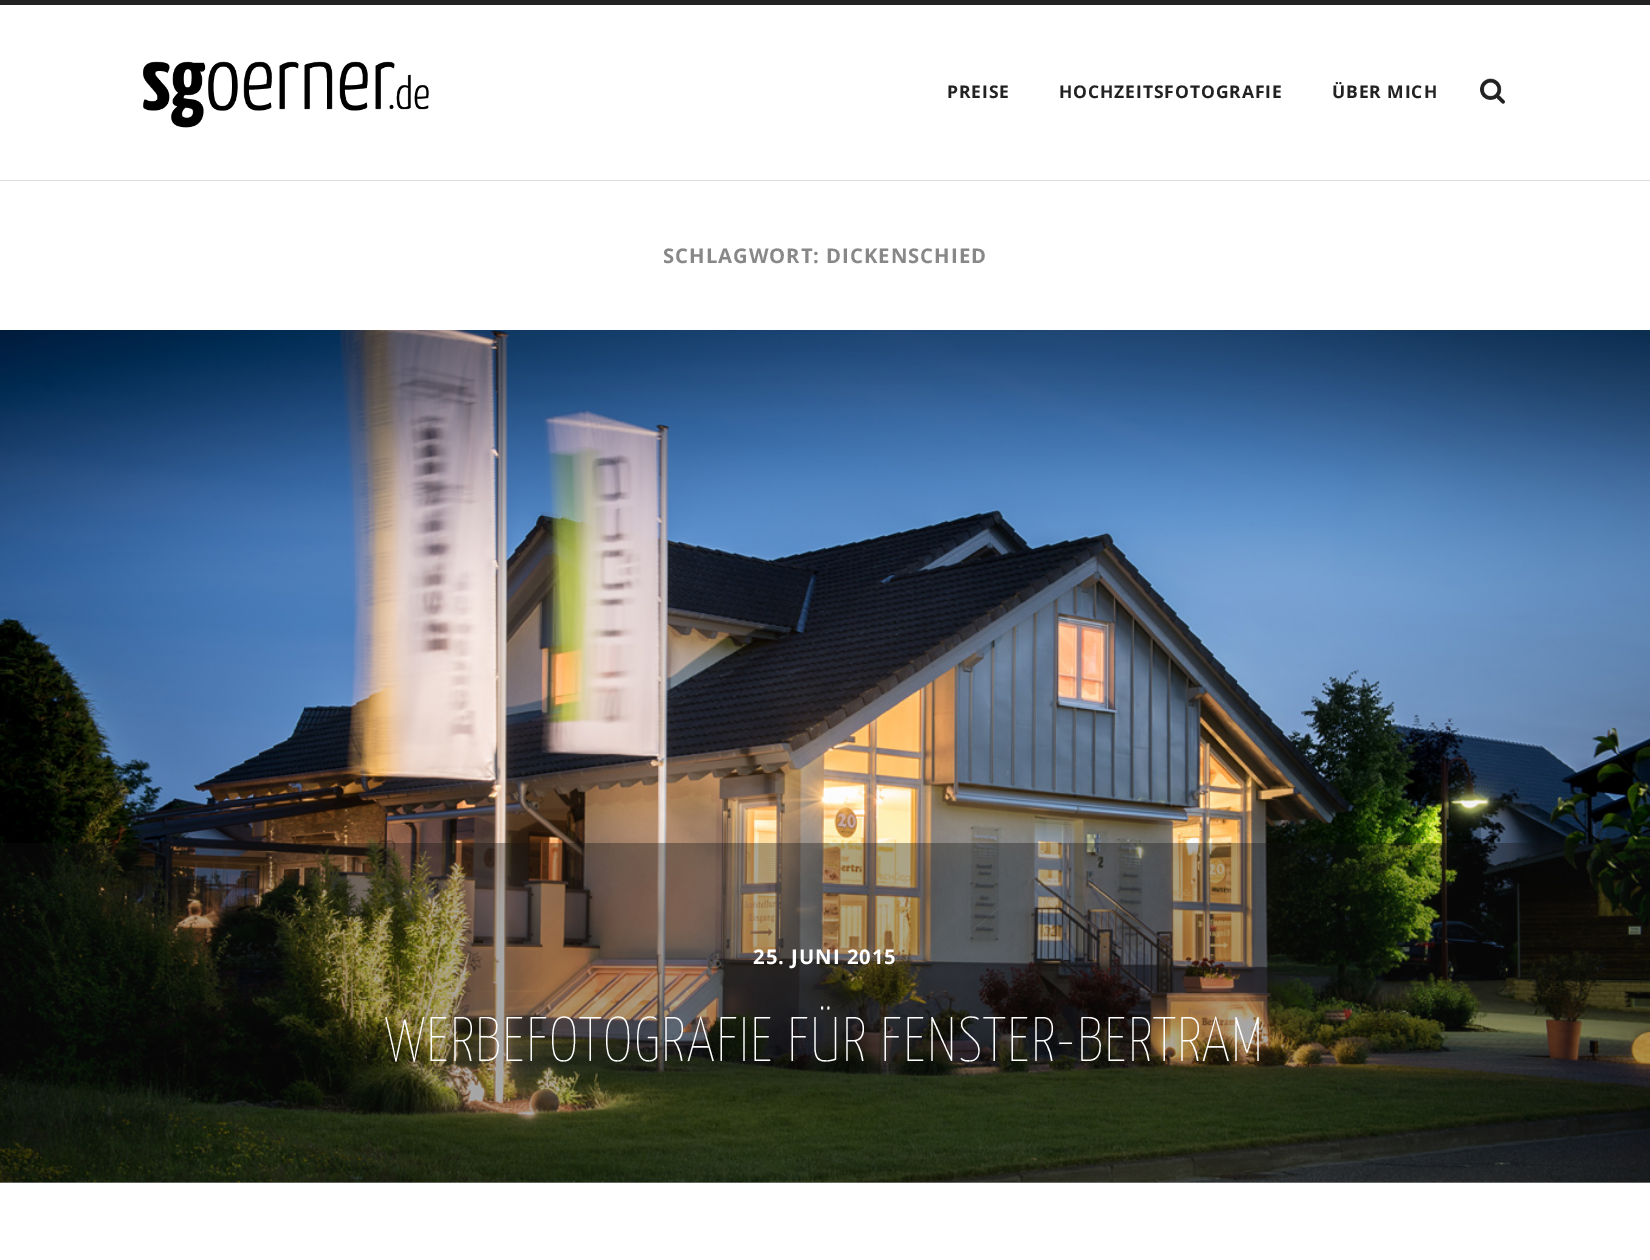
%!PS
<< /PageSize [1650 1260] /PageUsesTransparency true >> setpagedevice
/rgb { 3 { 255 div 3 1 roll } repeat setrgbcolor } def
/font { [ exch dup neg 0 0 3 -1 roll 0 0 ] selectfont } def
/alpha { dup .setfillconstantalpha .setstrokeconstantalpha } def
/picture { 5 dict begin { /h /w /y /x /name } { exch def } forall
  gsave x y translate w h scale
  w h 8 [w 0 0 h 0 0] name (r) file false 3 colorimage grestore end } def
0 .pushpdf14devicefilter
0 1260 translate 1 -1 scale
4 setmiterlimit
255 255 255 rgb
0 0 1650 1260 rectfill
34 34 34 rgb
0 0 1650 5 rectfill
(img/1.rgb) 143 61 286 67 picture
(img/2.rgb) 1480 78 25 26 picture
221 221 221 rgb
0 180 1650 1 rectfill
(img/3.rgb) 0 330 1650 853 picture
0.35 alpha
17 17 17 rgb
0 843 1650 340 rectfill
/OpenSans-Bold 17.5 font
1 alpha
34 34 34 rgb
947 98 moveto 0.9 0 (PREISE) ashow
1059 98 moveto 0.9 0 (HOCHZEITSFOTOGRAFIE) ashow
1332 98 moveto 0.9 0 (ÜBER MICH) ashow
/OpenSans-Bold 20.25 font
136 136 136 rgb
663 263 moveto 1 0 (SCHLAGWORT: DICKENSCHIED) ashow
255 255 255 rgb
753 964 moveto 1 0 (25. JUNI 2015) ashow
/YanoneKaffeesatz-ExtraLight 63 font
385 1061 moveto 1.25 0 (WERBEFOTOGRAFIE FÜR FENSTER-BERTRAM) ashow
.poppdf14devicefilter showpage
